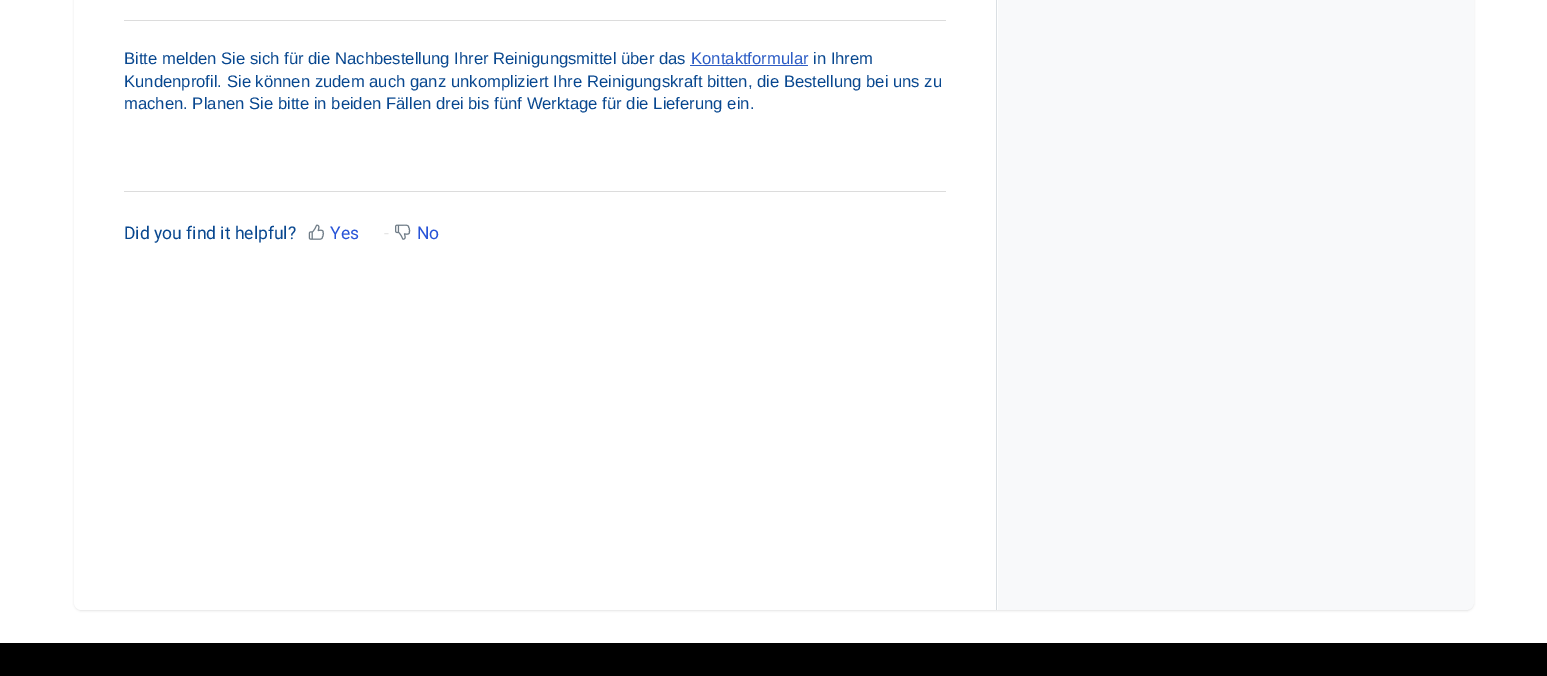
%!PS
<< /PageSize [1547 676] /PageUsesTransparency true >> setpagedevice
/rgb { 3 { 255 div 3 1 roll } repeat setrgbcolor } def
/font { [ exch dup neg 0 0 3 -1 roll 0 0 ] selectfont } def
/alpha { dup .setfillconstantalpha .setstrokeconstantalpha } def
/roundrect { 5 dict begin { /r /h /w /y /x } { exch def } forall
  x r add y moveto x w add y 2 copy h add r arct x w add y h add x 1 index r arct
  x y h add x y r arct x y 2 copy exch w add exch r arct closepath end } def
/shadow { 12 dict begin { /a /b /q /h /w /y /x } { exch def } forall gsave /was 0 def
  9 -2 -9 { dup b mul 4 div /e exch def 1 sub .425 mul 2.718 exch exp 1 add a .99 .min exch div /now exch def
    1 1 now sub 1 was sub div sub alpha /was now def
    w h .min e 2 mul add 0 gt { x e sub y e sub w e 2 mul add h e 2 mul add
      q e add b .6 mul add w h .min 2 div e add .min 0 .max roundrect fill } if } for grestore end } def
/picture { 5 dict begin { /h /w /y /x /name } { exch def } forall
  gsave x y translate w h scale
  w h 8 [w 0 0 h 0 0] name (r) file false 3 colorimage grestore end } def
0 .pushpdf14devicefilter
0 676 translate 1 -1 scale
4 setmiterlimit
255 255 255 rgb
0 0 1547 676 rectfill
63 63 68 rgb
74 -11 1400 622 8 1 0.15 shadow
248 249 250 rgb
74 -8 1400 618 8 roundrect fill
255 255 255 rgb
82 -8 moveto 998 -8 lineto 998 610 lineto 82 610 lineto 77.5 610 74 606.5 74 602 curveto 74 0 lineto 74 -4.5 77.5 -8 82 -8 curveto closepath fill
[
  [996 0 1 610 218 223 227]
  [124 20 822 1 220 220 220]
  [690 65 118 1 44 92 197]
  [124 191 822 1 220 220 220]
] { aload pop rgb rectfill } forall
(img/1.rgb) 308 224 17 16 picture
(img/2.rgb) 395 224 16 16 picture
0 0 0 rgb
0 643 1547 33 rectfill
/LiberationSans-Regular 16.65 font
8 71 143 rgb
124 64 moveto (Bitte melden Sie sich für die Nachbestellung Ihrer Reinigungsmittel über das) show
44 92 197 rgb
691 64 moveto (Kontaktformular) show
8 71 143 rgb
[
  [(in Ihrem) 813 64]
  [(Kundenprofil. Sie können zudem auch ganz unkompliziert Ihre Reinigungskraft bitten, die Bestellung bei uns zu) 124 87]
  [(machen. Planen Sie bitte in beiden Fällen drei bis fünf Werktage für die Lieferung ein.) 124 109]
] { aload pop moveto show } forall
/Roboto-Regular 17.5 font
124 239 moveto (Did you find it helpful?) show
39 83 215 rgb
330 239 moveto (Yes) show
229 229 229 rgb
384 239 moveto (-) show
39 83 215 rgb
417 239 moveto (No) show
.poppdf14devicefilter showpage
